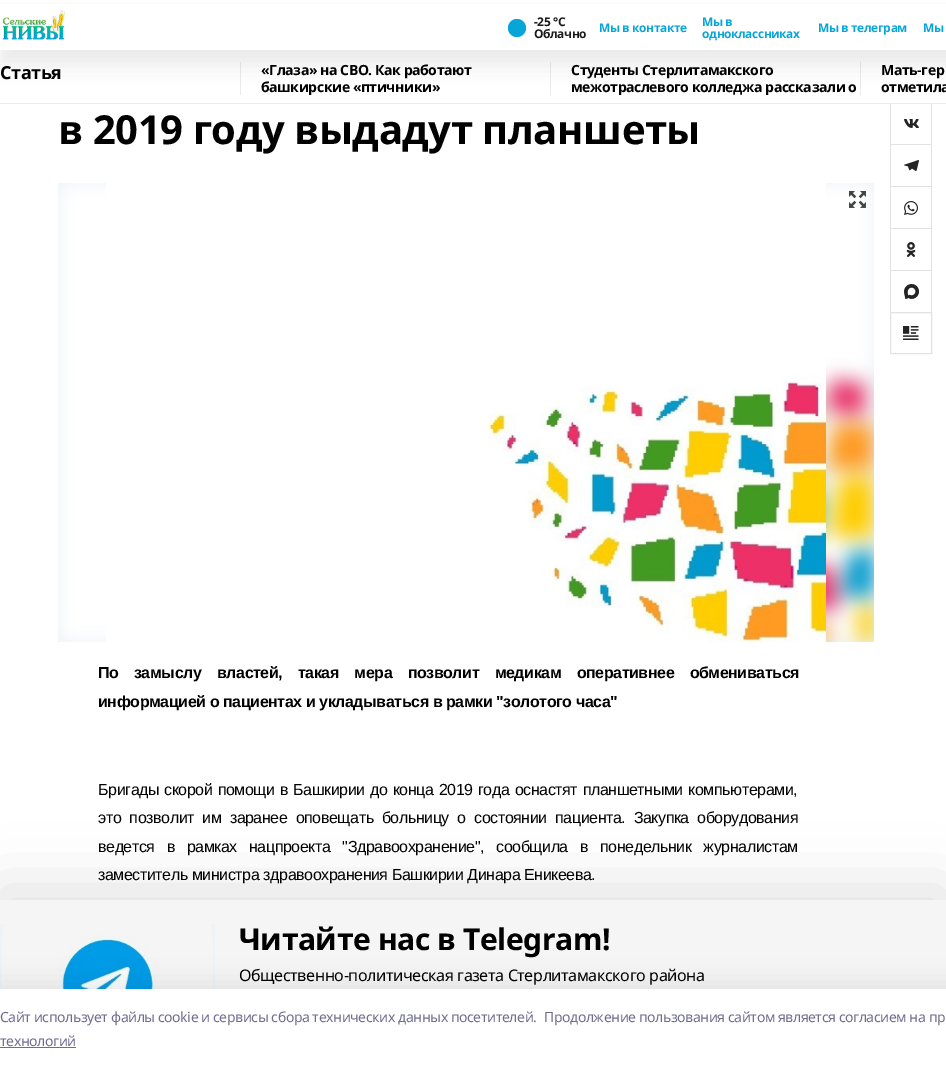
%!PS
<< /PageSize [946 1069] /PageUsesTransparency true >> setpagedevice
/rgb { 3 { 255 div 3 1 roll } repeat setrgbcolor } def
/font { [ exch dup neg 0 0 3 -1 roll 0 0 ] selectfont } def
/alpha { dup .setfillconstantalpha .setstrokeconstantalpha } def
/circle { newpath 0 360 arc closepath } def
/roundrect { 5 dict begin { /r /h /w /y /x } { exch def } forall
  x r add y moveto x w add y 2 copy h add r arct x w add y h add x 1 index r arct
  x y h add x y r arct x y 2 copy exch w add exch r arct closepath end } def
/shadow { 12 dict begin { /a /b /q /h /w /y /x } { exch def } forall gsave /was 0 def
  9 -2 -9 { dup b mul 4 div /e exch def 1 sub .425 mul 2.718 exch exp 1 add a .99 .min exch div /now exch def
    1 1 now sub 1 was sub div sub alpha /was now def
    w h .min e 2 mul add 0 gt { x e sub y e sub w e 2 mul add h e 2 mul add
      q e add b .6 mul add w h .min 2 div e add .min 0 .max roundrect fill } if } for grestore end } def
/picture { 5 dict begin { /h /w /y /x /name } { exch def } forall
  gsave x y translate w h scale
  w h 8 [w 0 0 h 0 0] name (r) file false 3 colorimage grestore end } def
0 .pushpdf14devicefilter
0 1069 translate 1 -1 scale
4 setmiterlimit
255 255 255 rgb
0 0 946 1069 rectfill
[
  [240 62 1 33 234 234 234]
  [550 62 1 33 234 234 234]
  [860 62 1 33 234 234 234]
] { aload pop rgb rectfill } forall
0 0 0 rgb
0 15 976 50 0 10 0.08 shadow
255 255 255 rgb
0 4 946 46 rectfill
(img/1.rgb) 2 10 63 30 picture
8 165 216 rgb
517 28 9 circle fill
[
  [931 102 1 42 226 226 226]
  [890 102 1 42 226 226 226]
  [890 102 42 1 255 255 255]
  [0 103 946 1 234 234 234]
  [58 183 816 459 237 242 247]
] { aload pop rgb rectfill } forall
(img/2.rgb) 58 183 816 459 picture
(img/3.rgb) 106 183 720 459 picture
(img/4.rgb) 849 191 17 17 picture
(img/5.rgb) 904 119 15 9 picture
(img/6.rgb) 904 160 15 11 picture
[
  [890 144 42 1 226 226 226]
  [931 144 1 42 226 226 226]
  [890 144 1 42 226 226 226]
] { aload pop rgb rectfill } forall
(img/7.rgb) 904 201 14 14 picture
[
  [890 186 42 1 226 226 226]
  [931 186 1 42 226 226 226]
  [890 186 1 42 226 226 226]
] { aload pop rgb rectfill } forall
(img/8.rgb) 906 242 10 15 picture
[
  [890 228 42 1 226 226 226]
  [931 228 1 42 226 226 226]
  [890 228 1 42 226 226 226]
] { aload pop rgb rectfill } forall
(img/9.rgb) 904 284 15 15 picture
[
  [890 270 42 1 226 226 226]
  [931 270 1 42 226 226 226]
  [890 270 1 42 226 226 226]
] { aload pop rgb rectfill } forall
(img/10.rgb) 903 326 16 14 picture
890.5 312.5 41 41 rectstroke
0 0 0 rgb
0 890 946 169 0 30 0.12 shadow
245 245 245 rgb
0 900 946 89 rectfill
237 242 247 rgb
0 924 215 65 rectfill
(img/11.rgb) 1 924 213 65 picture
(img/12.rgb) 4 924 207 65 picture
20 20 43 rgb
0 983 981 80 0 11.5 0.08 shadow
255 255 255 rgb
0 989 946 80 rectfill
111 108 144 rgb
0 1047 76 1 rectfill
/NotoSans-Bold 12 font
26 26 26 rgb
534 26 moveto -0.42 0 (-25 °С) ashow
534 38 moveto -0.42 0 (Облачно) ashow
8 165 216 rgb
599 32 moveto -0.42 0 (Мы в контакте) ashow
702 26 moveto -0.42 0 (Мы в) ashow
702 38 moveto -0.42 0 (одноклассниках) ashow
818 32 moveto -0.42 0 (Мы в телеграм) ashow
923 32 moveto -0.42 0 (Мы) ashow
/NotoSans-Bold 18 font
0 0 0 rgb
0 79 moveto -0.42 0 (Статья) ashow
/NotoSans-Bold 14 font
261 75 moveto -0.42 0 («Глаза» на СВО. Как работают) ashow
gsave
241 62 309 33 rectclip
261 92 moveto -0.42 0 (башкирские «птичники») ashow
grestore
571 75 moveto -0.42 0 (Cтуденты Стерлитамакского) ashow
gsave
551 62 309 33 rectclip
571 92 moveto -0.42 0 (межотраслевого колледжа рассказали о) ashow
grestore
881 75 moveto -0.42 0 (Мать-гер) ashow
881 92 moveto -0.42 0 (отметила) ashow
/NotoSans-Bold 40 font
58 144 moveto -0.42 0 (в 2019 году выдадут планшеты) ashow
/LiberationSans-Bold 16 font
98 678 moveto 11.5 0 32 -0.42 0 (По замыслу властей, такая мера позволит медикам оперативнее обмениваться) awidthshow
98 707 moveto -0.42 0 (информацией о пациентах и укладываться в рамки "золотого часа") ashow
/LiberationSans-Regular 16 font
98 795 moveto 1.25 0 32 -0.42 0 (Бригады скорой помощи в Башкирии до конца 2019 года оснастят планшетными компьютерами,) awidthshow
98 823 moveto 4.25 0 32 -0.42 0 (это позволит им заранее оповещать больницу о состоянии пациента. Закупка оборудования) awidthshow
98 852 moveto 8 0 32 -0.42 0 (ведется в рамках нацпроекта "Здравоохранение", сообщила в понедельник журналистам) awidthshow
98 880 moveto -0.42 0 (заместитель министра здравоохранения Башкирии Динара Еникеева.) ashow
/NotoSans-Bold 30 font
239 950 moveto -0.42 0 (Читайте нас в Telegram!) ashow
/NotoSans-Regular 16 font
239 981 moveto -0.42 0 (Общественно-политическая газета Стерлитамакского района) ashow
/NotoSans-Regular 14 font
111 108 144 rgb
0 1022 moveto -0.42 0 (Cайт использует файлы cookie и сервисы сбора технических данных посетителей.) ashow
544 1022 moveto -0.42 0 (Продолжение пользования сайтом является согласием на пр) ashow
0 1046 moveto -0.42 0 (технологий) ashow
.poppdf14devicefilter showpage
